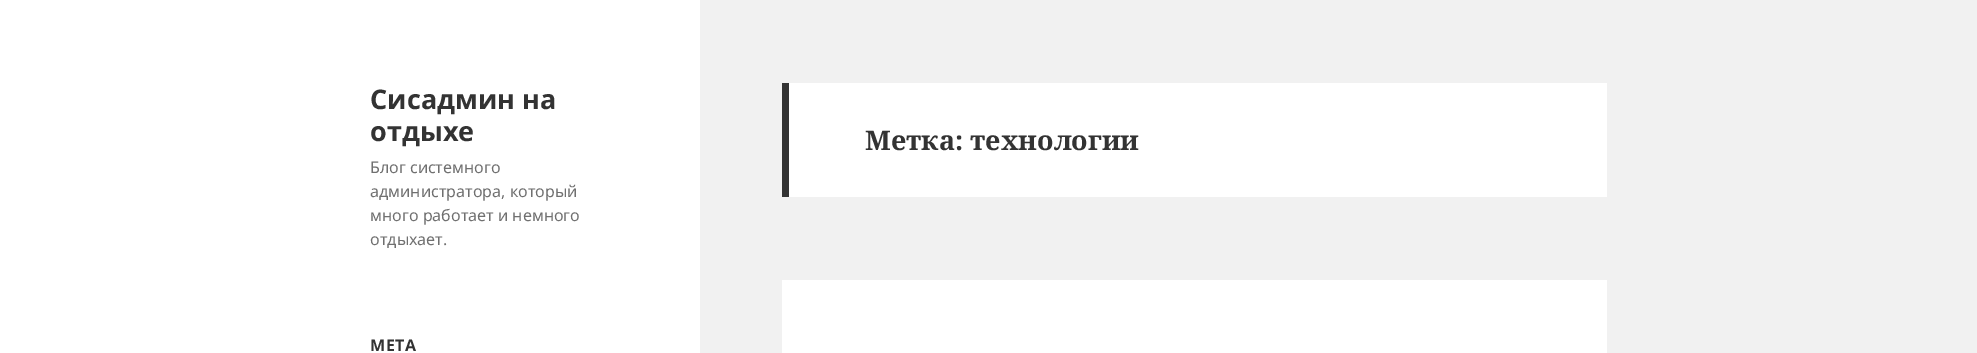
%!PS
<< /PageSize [1977 353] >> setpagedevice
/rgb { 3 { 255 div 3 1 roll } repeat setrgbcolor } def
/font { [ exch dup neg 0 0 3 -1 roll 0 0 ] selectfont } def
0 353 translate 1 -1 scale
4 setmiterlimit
241 241 241 rgb
0 0 1977 353 rectfill
[
  [0 0 700 353 255 255 255]
  [789 83 818 114 255 255 255]
  [782 83 7 114 51 51 51]
  [782 280 825 73 255 255 255]
] { aload pop rgb rectfill } forall
/NotoSans-Bold 27 font
51 51 51 rgb
370 109 moveto (Сисадмин на) show
370 141 moveto (отдыхе) show
/NotoSans-Regular 16 font
112 112 112 rgb
[
  [(Блог системного) 370 173]
  [(администратора, который) 370 197]
  [(много работает и немного) 370 221]
  [(отдыхает.) 370 245]
] { aload pop moveto show } forall
/NotoSans-Bold 16 font
51 51 51 rgb
370 351 moveto 0.5 0 (МЕТА) ashow
/NotoSerif-Bold 27 font
865 150 moveto (Метка: технологии) show
showpage
